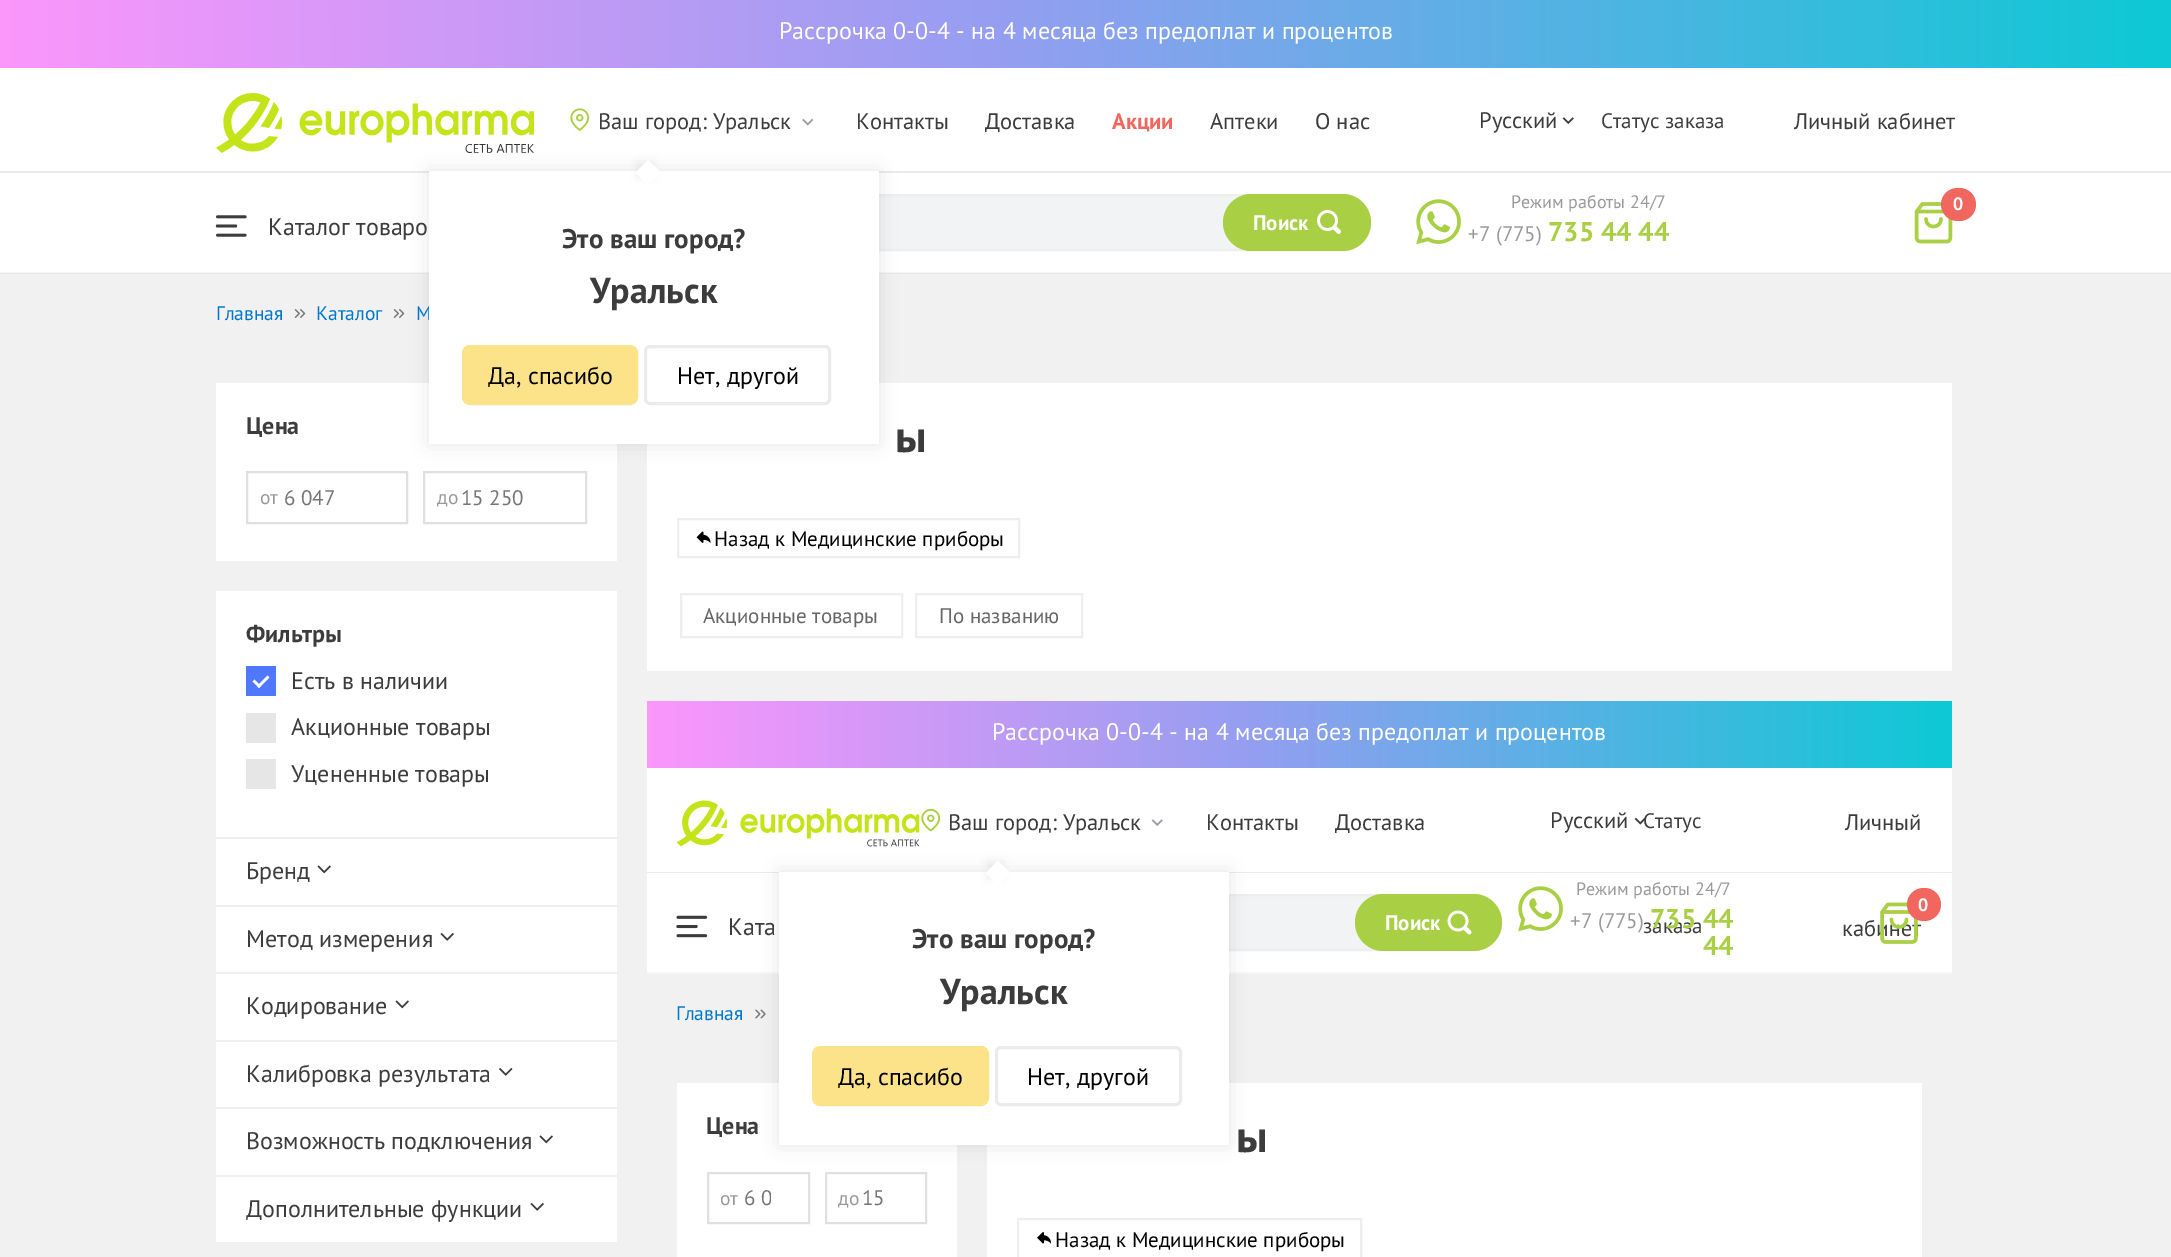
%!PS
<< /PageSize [2171 1257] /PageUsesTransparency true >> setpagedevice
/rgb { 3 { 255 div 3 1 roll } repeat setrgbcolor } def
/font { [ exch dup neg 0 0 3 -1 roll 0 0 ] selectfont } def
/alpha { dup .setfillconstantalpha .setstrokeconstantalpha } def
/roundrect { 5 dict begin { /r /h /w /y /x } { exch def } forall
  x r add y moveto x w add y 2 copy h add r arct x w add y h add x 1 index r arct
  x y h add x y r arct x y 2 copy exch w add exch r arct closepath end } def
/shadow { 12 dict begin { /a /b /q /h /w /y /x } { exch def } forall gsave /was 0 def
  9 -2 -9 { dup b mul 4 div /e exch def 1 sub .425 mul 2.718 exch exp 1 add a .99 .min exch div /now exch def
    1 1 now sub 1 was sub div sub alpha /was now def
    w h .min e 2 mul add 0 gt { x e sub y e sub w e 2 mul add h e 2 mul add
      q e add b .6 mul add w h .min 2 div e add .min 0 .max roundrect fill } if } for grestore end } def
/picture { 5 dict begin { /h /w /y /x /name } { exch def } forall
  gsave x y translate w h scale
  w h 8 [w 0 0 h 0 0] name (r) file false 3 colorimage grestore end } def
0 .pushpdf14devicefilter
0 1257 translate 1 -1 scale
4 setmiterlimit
241 241 241 rgb
0 0 2171 1257 rectfill
233 233 233 rgb
0 273 2171 1 rectfill
gsave 0 0 moveto 2171 0 lineto 2171 68 lineto 0 68 lineto closepath clip newpath
<< /ShadingType 2 /ColorSpace /DeviceRGB /Coords [0 35 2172 32] /Extend [true true] /Function << /FunctionType 3 /Domain [0 1] /Functions [<< /FunctionType 2 /Domain [0 1] /C0 [0.988 0.588 0.988] /C1 [0.584 0.62 0.945] /N 1 >> << /FunctionType 2 /Domain [0 1] /C0 [0.584 0.62 0.945] /C1 [0.051 0.788 0.835] /N 1 >>] /Bounds [0.46] /Encode [0 1 0 1] >> >> shfill grestore
[
  [0 68 2171 204 255 255 255]
  [0 272 2171 1 246 246 246]
  [0 171 2171 2 235 235 235]
] { aload pop rgb rectfill } forall
(img/1.rgb) 216 93 318 60 picture
(img/2.rgb) 570 108 20 23 picture
(img/3.rgb) 802 118 12 8 picture
241 243 244 rgb
562 195 808 55 27.5 roundrect gsave fill grestore
238 238 238 rgb
2 setlinewidth
stroke
(img/9.rgb) 393 309 12 9 picture
255 255 255 rgb
216 383 401 178 rectfill
224 224 224 rgb
247 472 160 51 rectstroke
424 472 162 51 rectstroke
255 255 255 rgb
647 383 1305 288 rectfill
0 0 0 rgb
429 171 450 273 0 9 0.1 shadow
(img/4.rgb) 1562 117 12 7 picture
(img/5.rgb) 1416 199 45 46 picture
(img/6.rgb) 1914 202 39 42 picture
241 102 94 rgb
1941 188 35 33 16.5 roundrect fill
(img/7.rgb) 215 215 32 22 picture
169 207 68 rgb
1223 194 148 57 28.5 roundrect fill
(img/8.rgb) 1317 210 24 24 picture
(img/9.rgb) 294 309 12 9 picture
255 255 255 rgb
216 591 401 651 rectfill
79 120 254 rgb
246 666 30 30 rectfill
255 255 255 rgb
267.5 675.5 moveto 269.5 677.5 lineto 259 688 lineto 257 686 lineto closepath fill
254.5 679.5 moveto 261 686 lineto 259 688 lineto 252.5 681.5 lineto closepath fill
[
  [246 713 30 30 230 230 230]
  [246 759 30 30 230 230 230]
  [216 837 401 2 240 240 240]
] { aload pop rgb rectfill } forall
(img/10.rgb) 317 865 14 9 picture
216 905 401 2 rectfill
(img/11.rgb) 440 933 14 8 picture
216 972 401 2 rectfill
(img/10.rgb) 395 1000 14 9 picture
216 1040 401 2 rectfill
(img/12.rgb) 499 1068 14 8 picture
216 1107 401 2 rectfill
(img/10.rgb) 539 1135 14 9 picture
216 1175 401 2 rectfill
(img/11.rgb) 530 1203 14 8 picture
238 238 238 rgb
678 519 341 38 rectstroke
(img/13.rgb) 696 531 15 13 picture
681 594 221 43 rectstroke
916 594 166 43 rectstroke
gsave 647 701 moveto 1952 701 lineto 1952 768 lineto 647 768 lineto closepath clip newpath
<< /ShadingType 2 /ColorSpace /DeviceRGB /Coords [646 735 1952 733] /Extend [true true] /Function << /FunctionType 3 /Domain [0 1] /Functions [<< /FunctionType 2 /Domain [0 1] /C0 [0.988 0.588 0.988] /C1 [0.584 0.62 0.945] /N 1 >> << /FunctionType 2 /Domain [0 1] /C0 [0.584 0.62 0.945] /C1 [0.051 0.788 0.835] /N 1 >>] /Bounds [0.46] /Encode [0 1 0 1] >> >> shfill grestore
255 255 255 rgb
647 768 1305 104 rectfill
235 235 235 rgb
647 872 1305 1 rectfill
(img/14.rgb) 677 800 243 47 picture
(img/15.rgb) 921 808 20 24 picture
(img/16.rgb) 1151 819 12 7 picture
255 255 255 rgb
647 873 1305 99 rectfill
246 246 246 rgb
647 972 1305 2 rectfill
241 243 244 rgb
924 895 577 55 27.5 roundrect gsave fill grestore
238 238 238 rgb
stroke
(img/21.rgb) 755 1009 11 10 picture
255 255 255 rgb
677 1083 280 174 rectfill
224 224 224 rgb
708 1173 101 50 rectstroke
826 1173 100 50 rectstroke
255 255 255 rgb
987 1083 935 174 rectfill
0 0 0 rgb
779 872 450 273 0 9 0.1 shadow
255 255 255 rgb
779 872 450 273 rectfill
0 0 0 rgb
986 861 18 18 0 4 0.06 shadow
255 255 255 rgb
998 860.5 moveto 1010.5 873 lineto 998 885.5 lineto 985.5 873 lineto closepath fill
252 227 137 rgb
813.5 1047.5 174 57 6.5 roundrect gsave fill grestore
3 setlinewidth
stroke
235 235 235 rgb
996.5 1047.5 184 57 4.5 roundrect stroke
(img/17.rgb) 1634 817 12 8 picture
(img/5.rgb) 1518 886 45 46 picture
(img/19.rgb) 676 915 32 23 picture
169 207 68 rgb
1355 894 147 57 28.5 roundrect fill
(img/20.rgb) 1447 910 25 25 picture
238 238 238 rgb
2 setlinewidth
1018 1219 343 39 rectstroke
(img/22.rgb) 1037 1232 14 12 picture
/PTSans-Regular 24 font
255 255 255 rgb
779 39 moveto (Рассрочка 0-0-4 - на 4 месяца без предоплат и процентов) show
/PTSans-Regular 22.5 font
60 60 60 rgb
[
  [(Ваш город: Уральск) 598 129]
  [(Контакты) 856 129]
  [(Доставка) 985 129]
] { aload pop moveto show } forall
/PTSans-Bold 22.5 font
241 103 94 rgb
1112 129 moveto (Акции) show
/PTSans-Regular 22.5 font
60 60 60 rgb
[
  [(Аптеки) 1210 129]
  [(О нас) 1315 129]
  [(Русский) 1479 128]
] { aload pop moveto show } forall
/PTSans-Regular 21 font
1601 128 moveto (Статус заказа) show
/PTSans-Regular 22.5 font
1794 129 moveto (Личный кабинет) show
/PTSans-Regular 18 font
153 153 153 rgb
1511 208 moveto (Режим работы 24/7) show
/PTSans-Regular 21 font
1468 241 moveto (+7 \(775\)) show
/PTSans-Bold 27 font
169 207 68 rgb
1548 241 moveto (735 44 44) show
/PTSans-Bold 18 font
255 255 255 rgb
1953 210 moveto (0) show
/PTSans-Regular 24 font
60 60 60 rgb
268 235 moveto (Каталог товаро) show
/PTSans-Bold 21 font
255 255 255 rgb
1253 230 moveto (Поиск) show
/PTSans-Regular 19.5 font
0 119 204 rgb
[
  [(Главная) 216 320]
  [(Каталог) 316 320]
  [(М) 416 320]
] { aload pop moveto show } forall
255 255 255 rgb
429 171 450 273 rectfill
0 0 0 rgb
636 161 18 18 0 4 0.06 shadow
255 255 255 rgb
648 160 moveto 661 172.5 lineto 648 185 lineto 635.5 172.5 lineto closepath fill
235 235 235 rgb
3 setlinewidth
645.5 346.5 184 57 4.5 roundrect stroke
/PTSans-Regular 24 font
0 0 0 rgb
677 384 moveto (Нет, другой) show
252 227 137 rgb
463.5 346.5 173 57 6.5 roundrect gsave fill grestore
stroke
0 0 0 rgb
488 384 moveto (Да, спасибо) show
/PTSans-Bold 36 font
60 60 60 rgb
590 303 moveto (Уральск) show
/PTSans-Bold 27 font
562 248 moveto (Это ваш город?) show
/PTSans-Bold 24 font
246 434 moveto (Цена) show
/PTSans-Regular 19.5 font
153 153 153 rgb
260 504 moveto (от) show
/PTSans-Regular 21 font
117 117 117 rgb
284 505 moveto (6 047) show
/PTSans-Regular 19.5 font
153 153 153 rgb
437 504 moveto (до) show
/PTSans-Regular 21 font
117 117 117 rgb
461 505 moveto (15 250) show
/PTSans-Bold 24 font
60 60 60 rgb
246 642 moveto (Фильтры) show
/PTSans-Regular 24 font
[
  [(Есть в наличии) 291 689]
  [(Акционные товары) 291 735]
  [(Уцененные товары) 291 782]
  [(Бренд) 246 879]
  [(Метод измерения) 246 947]
  [(Кодирование) 246 1014]
  [(Калибровка результата) 246 1082]
  [(Возможность подключения) 246 1149]
  [(Дополнительные функции) 246 1217]
] { aload pop moveto show } forall
/PTSans-Bold 45 font
895 452 moveto (ы) show
/PTSans-Regular 21 font
0 0 0 rgb
714 546 moveto (Назад к Медицинские приборы) show
102 102 102 rgb
703 623 moveto (Акционные товары) show
939 623 moveto (По названию) show
/PTSans-Regular 24 font
255 255 255 rgb
992 740 moveto (Рассрочка 0-0-4 - на 4 месяца без предоплат и процентов) show
/PTSans-Regular 22.5 font
60 60 60 rgb
948 830 moveto (Ваш город: Уральск) show
/PTSans-Bold 27 font
912 948 moveto (Это ваш город?) show
/PTSans-Bold 36 font
940 1004 moveto (Уральск) show
/PTSans-Regular 24 font
0 0 0 rgb
838 1085 moveto (Да, спасибо) show
1027 1085 moveto (Нет, другой) show
/PTSans-Regular 22.5 font
60 60 60 rgb
[
  [(Контакты) 1206 830]
  [(Доставка) 1335 830]
  [(Русский) 1550 828]
] { aload pop moveto show } forall
/PTSans-Regular 21 font
1643 828 moveto (Статус) show
1643 933 moveto (заказа) show
/PTSans-Regular 22.5 font
1845 830 moveto (Личный) show
1842 936 moveto (кабинет) show
/PTSans-Regular 18 font
153 153 153 rgb
1576 895 moveto (Режим работы 24/7) show
/PTSans-Regular 21 font
1570 928 moveto (+7 \(775\)) show
/PTSans-Bold 27 font
169 207 68 rgb
1650 928 moveto (735 44) show
1703 955 moveto (44) show
(img/18.rgb) 1880 902 38 42 picture
241 102 94 rgb
1907 888 34 33 16.5 roundrect fill
/PTSans-Bold 18 font
255 255 255 rgb
1918 911 moveto (0) show
/PTSans-Regular 24 font
60 60 60 rgb
728 935 moveto (Ката) show
/PTSans-Bold 21 font
255 255 255 rgb
1385 930 moveto (Поиск) show
/PTSans-Regular 19.5 font
0 119 204 rgb
676 1020 moveto (Главная) show
/PTSans-Bold 24 font
60 60 60 rgb
706 1134 moveto (Цена) show
/PTSans-Regular 19.5 font
153 153 153 rgb
720 1205 moveto (от) show
gsave
744 1185 27 27 rectclip
/PTSans-Regular 21 font
117 117 117 rgb
744 1205 moveto (6 0) show
grestore
838 1205 moveto (до) show
/PTSans-Regular 21 font
117 117 117 rgb
862 1205 moveto (15) show
/PTSans-Bold 45 font
60 60 60 rgb
1236 1152 moveto (ы) show
/PTSans-Regular 21 font
0 0 0 rgb
1055 1247 moveto (Назад к Медицинские приборы) show
.poppdf14devicefilter showpage
